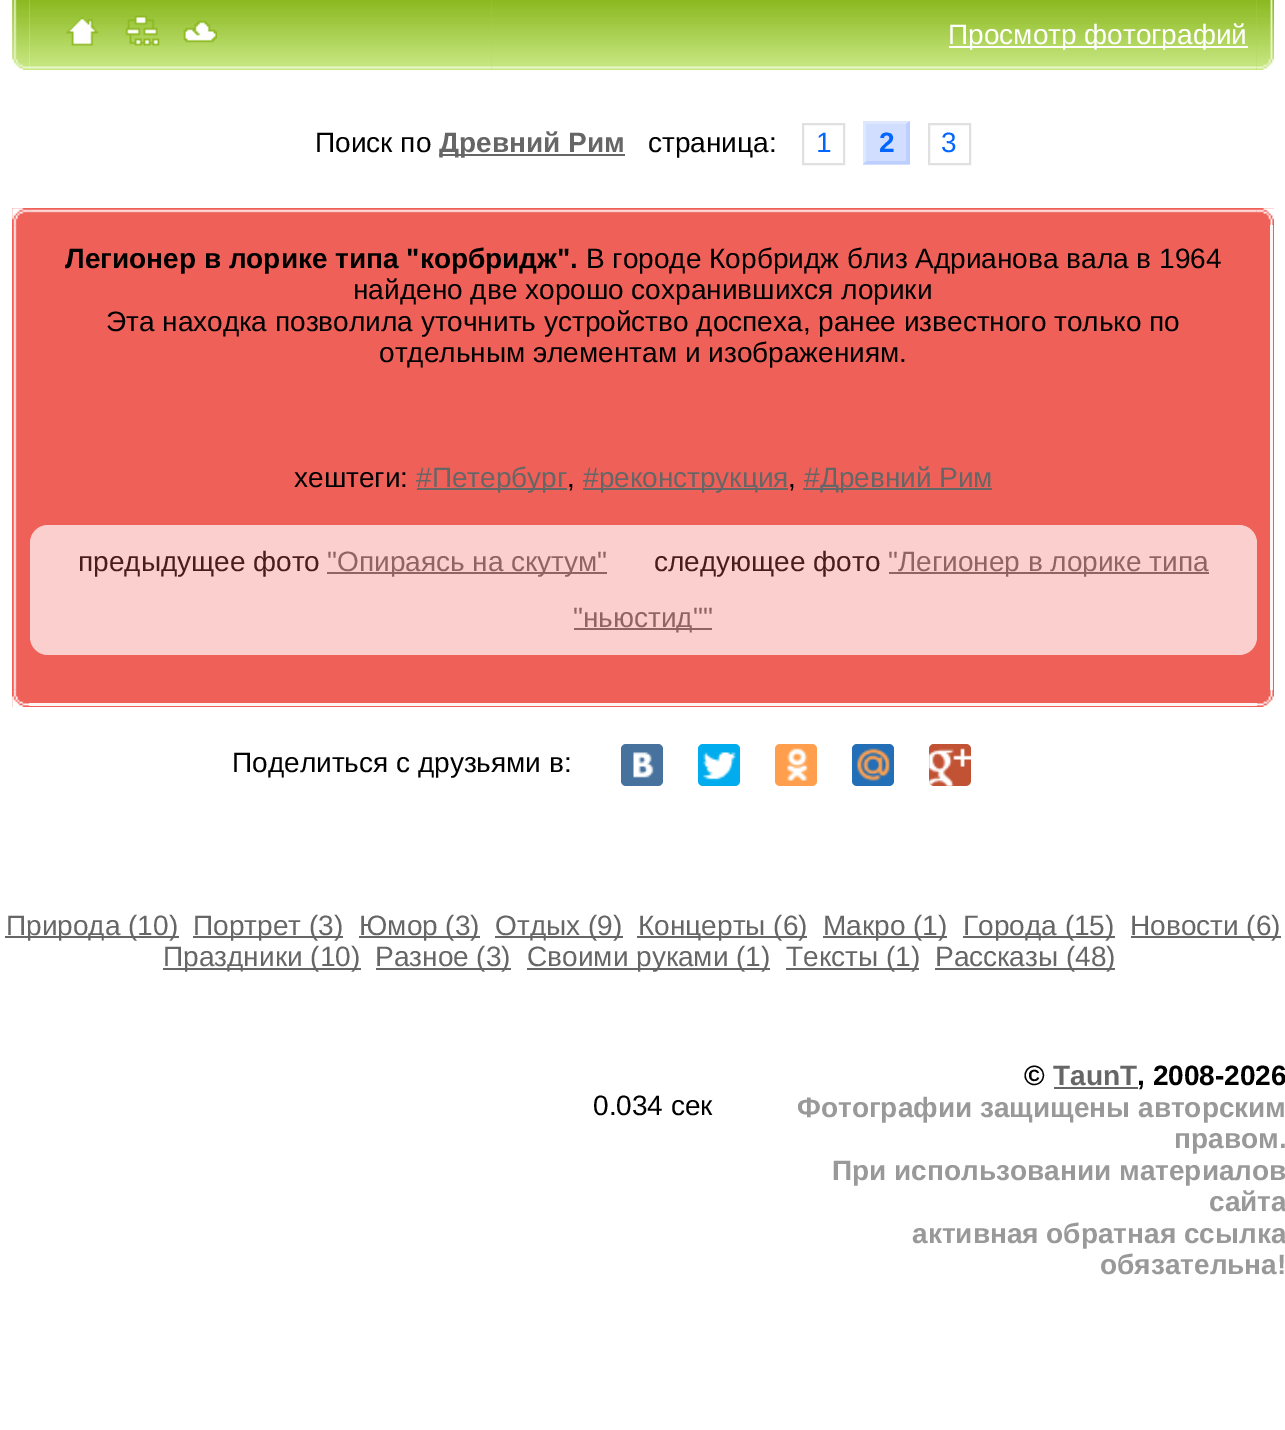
%!PS
<< /PageSize [1285 1430] /PageUsesTransparency true >> setpagedevice
/rgb { 3 { 255 div 3 1 roll } repeat setrgbcolor } def
/font { [ exch dup neg 0 0 3 -1 roll 0 0 ] selectfont } def
/alpha { dup .setfillconstantalpha .setstrokeconstantalpha } def
/roundrect { 5 dict begin { /r /h /w /y /x } { exch def } forall
  x r add y moveto x w add y 2 copy h add r arct x w add y h add x 1 index r arct
  x y h add x y r arct x y 2 copy exch w add exch r arct closepath end } def
/picture { 5 dict begin { /h /w /y /x /name } { exch def } forall
  gsave x y translate w h scale
  w h 8 [w 0 0 h 0 0] name (r) file false 3 colorimage grestore end } def
0 .pushpdf14devicefilter
0 1430 translate 1 -1 scale
4 setmiterlimit
255 255 255 rgb
0 0 1285 1430 rectfill
(img/1.rgb) 12 0 18 70 picture
(img/2.rgb) 29 0 463 70 picture
(img/3.rgb) 66 17 33 29 picture
(img/4.rgb) 125 15 35 31 picture
(img/5.rgb) 183 20 34 23 picture
(img/6.rgb) 491 0 766 70 picture
949 46 299 2 rectfill
(img/7.rgb) 1256 0 18 70 picture
102 102 102 rgb
439 154 186 2 rectfill
224 224 224 rgb
2 setlinewidth
803 124 41 40 rectstroke
209 222 255 rgb
863 121 47 44 rectfill
221 231 255 rgb
863 121 moveto 910 121 lineto 906 124 lineto 866 124 lineto closepath fill
188 207 255 rgb
910 121 moveto 910 164 lineto 906 161 lineto 906 124 lineto closepath fill
910 164 moveto 863 164 lineto 866 161 lineto 906 161 lineto closepath fill
221 231 255 rgb
863 164 moveto 863 121 lineto 866 124 lineto 866 161 lineto closepath fill
224 224 224 rgb
929 124 41 40 rectstroke
239 96 89 rgb
12 208 1262 499 rectfill
(img/8.rgb) 12 208 18 18 picture
(img/9.rgb) 29 209 1228 4 picture
(img/10.rgb) 1256 208 18 18 picture
(img/11.rgb) 13 225 4 465 picture
[
  [417 488 150 2 102 102 102]
  [583 488 205 2 102 102 102]
  [803 488 189 2 102 102 102]
] { aload pop rgb rectfill } forall
250 207 205 rgb
30 525 1227 130 18 roundrect fill
[
  [327 572 280 2 143 100 98]
  [889 572 320 2 143 100 98]
  [574 628 138 2 143 100 98]
] { aload pop rgb rectfill } forall
0.94 alpha
[
  [1270 225 3 465 255 255 255]
] { aload pop rgb rectfill } forall
1 alpha
(img/12.rgb) 12 689 18 18 picture
0.94 alpha
29 703 1228 3 rectfill
1 alpha
(img/13.rgb) 1256 689 18 18 picture
72 114 158 rgb
621 744 42 42 5 roundrect fill
(img/14.rgb) 633 752 21 26 picture
0 172 237 rgb
698 744 42 42 5 roundrect fill
(img/15.rgb) 703 752 33 28 picture
255 159 77 rgb
775 744 42 42 5 roundrect fill
(img/16.rgb) 787 748 21 33 picture
34 110 183 rgb
852 744 42 42 5 roundrect fill
(img/17.rgb) 857 748 33 33 picture
194 82 52 rgb
929 744 42 42 5 roundrect fill
(img/18.rgb) 929 748 42 38 picture
[
  [5 936 174 2 102 102 102]
  [193 936 150 2 102 102 102]
  [359 936 121 2 102 102 102]
  [495 936 128 2 102 102 102]
  [637 936 170 2 102 102 102]
  [823 936 124 2 102 102 102]
  [963 936 152 2 102 102 102]
  [1131 936 150 2 102 102 102]
  [163 968 198 2 102 102 102]
  [376 968 135 2 102 102 102]
  [527 968 243 2 102 102 102]
  [786 968 133 2 102 102 102]
  [935 968 180 2 102 102 102]
  [1054 1087 84 2 102 102 102]
] { aload pop rgb rectfill } forall
/LiberationSans-Regular 28 font
255 255 255 rgb
948 44 moveto (Просмотр фотографий) show
0 0 0 rgb
315 152 moveto (Поиск по) show
/LiberationSans-Bold 28 font
102 102 102 rgb
439 152 moveto (Древний Рим) show
/LiberationSans-Regular 28 font
0 0 0 rgb
648 152 moveto (cтраница:) show
0 102 255 rgb
816 152 moveto (1) show
/LiberationSans-Bold 28 font
879 152 moveto (2) show
/LiberationSans-Regular 28 font
941 152 moveto (3) show
/LiberationSans-Bold 28 font
0 0 0 rgb
65 268 moveto (Легионер в лорике типа "корбридж".) show
/LiberationSans-Regular 28 font
[
  [(В городе Корбридж близ Адрианова вала в 1964) 586 268]
  [(найдено две хорошо сохранившихся лорики) 353 299]
  [(Эта находка позволила уточнить устройство доспеха, ранее известного только по) 106 331]
  [(отдельным элементам и изображениям.) 379 362]
  [(хештеги:) 294 487]
] { aload pop moveto show } forall
102 102 102 rgb
416 487 moveto (#Петербург) show
0 0 0 rgb
567 487 moveto (,) show
102 102 102 rgb
583 487 moveto (#реконструкция) show
0 0 0 rgb
788 487 moveto (,) show
102 102 102 rgb
804 487 moveto (#Древний Рим) show
72 29 27 rgb
78 571 moveto (предыдущее фото) show
143 100 98 rgb
327 571 moveto ("Опираясь на скутум") show
72 29 27 rgb
654 571 moveto (следующее фото) show
143 100 98 rgb
888 571 moveto ("Легионер в лорике типа) show
573 627 moveto ("ньюстид"") show
0 0 0 rgb
232 772 moveto (Поделиться с друзьями в:) show
102 102 102 rgb
[
  [(Природа \(10\)) 6 935]
  [(Портрет \(3\)) 193 935]
  [(Юмор \(3\)) 359 935]
  [(Отдых \(9\)) 495 935]
  [(Концерты \(6\)) 638 935]
  [(Макро \(1\)) 823 935]
  [(Города \(15\)) 963 935]
  [(Новости \(6\)) 1130 935]
  [(Праздники \(10\)) 163 966]
  [(Разное \(3\)) 375 966]
  [(Своими руками \(1\)) 527 966]
  [(Тексты \(1\)) 786 966]
  [(Рассказы \(48\)) 935 966]
] { aload pop moveto show } forall
0 0 0 rgb
593 1115 moveto (0.034 cек) show
/LiberationSans-Bold 28 font
1024 1085 moveto (©) show
102 102 102 rgb
1053 1085 moveto (TaunT) show
0 0 0 rgb
1137 1085 moveto (, 2008-2026) show
153 153 153 rgb
[
  [(Фотографии защищены авторским) 797 1117]
  [(правом.) 1174 1148]
  [(При использовании материалов) 832 1180]
  [(сайта) 1209 1211]
  [(активная обратная ссылка) 912 1243]
  [(обязательна!) 1100 1274]
] { aload pop moveto show } forall
.poppdf14devicefilter showpage
